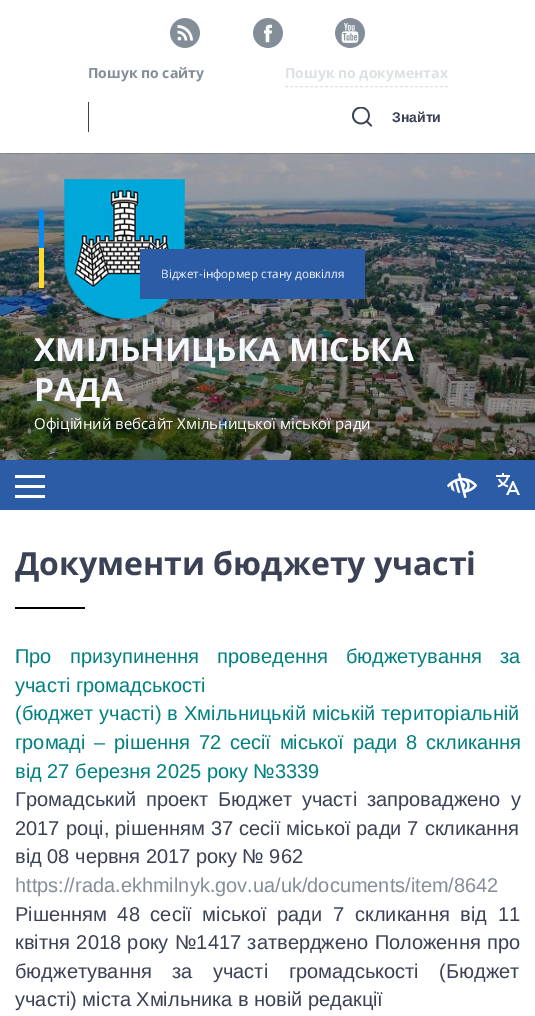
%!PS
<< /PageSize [535 1016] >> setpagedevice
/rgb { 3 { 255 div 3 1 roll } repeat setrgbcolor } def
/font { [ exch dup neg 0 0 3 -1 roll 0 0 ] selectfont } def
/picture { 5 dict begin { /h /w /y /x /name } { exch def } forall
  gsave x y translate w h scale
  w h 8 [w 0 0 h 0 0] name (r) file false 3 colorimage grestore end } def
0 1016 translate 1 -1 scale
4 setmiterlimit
255 255 255 rgb
0 0 535 1016 rectfill
(img/1.rgb) 170 18 30 30 picture
(img/2.rgb) 253 18 30 30 picture
(img/3.rgb) 335 18 30 30 picture
221 225 230 rgb
[3 2] 0 setdash
285 86.5 moveto 448 86.5 lineto stroke
59 66 86 rgb
88 102 1 30 rectfill
(img/4.rgb) 351 107 22 20 picture
(img/5.rgb) 0 153 535 307 picture
(img/6.rgb) 64 179 121 140 picture
[
  [140 249 225 50 45 92 166]
  [39 210 5 38 0 139 247]
  [39 248 5 40 255 219 46]
  [0 460 535 50 45 92 166]
  [15 485 30 3 255 255 255]
  [15 475 30 3 255 255 255]
  [15 495 30 3 255 255 255]
] { aload pop rgb rectfill } forall
(img/7.rgb) 447 473 30 25 picture
(img/8.rgb) 496 473 24 22 picture
0 0 0 rgb
15 607 70 2 rectfill
/OpenSans-Bold 14 font
132 142 153 rgb
88 78 moveto (Пошук по сайту) show
221 225 230 rgb
285 78 moveto (Пошук по документах) show
/LiberationSans-Bold 14 font
59 66 86 rgb
392 122 moveto (Знайти) show
/OpenSans-Regular 11.7 font
244 247 251 rgb
161 278 moveto (Віджет-інформер стану довкілля) show
/OpenSans-Bold 32 font
34 361 moveto (ХМІЛЬНИЦЬКА МІСЬКА) show
34 401 moveto (РАДА) show
/OpenSans-Regular 15 font
255 255 255 rgb
34 429 moveto (Офіційний вебсайт Хмільницької міської ради) show
/OpenSans-Bold 32 font
59 66 86 rgb
15 575 moveto (Документи бюджету участі) show
/LiberationSans-Regular 20 font
0 128 128 rgb
15 663 moveto 12.5 0 32 (Про призупинення проведення бюджетування за) widthshow
15 692 moveto (участі громадськості) show
15 720 moveto 0.5 0 32 (\(бюджет участі\) в Хмільницькій міській територіальній) widthshow
15 749 moveto 3.25 0 32 (громаді – рішення 72 сесії міської ради 8 скликання) widthshow
15 778 moveto (від 27 березня 2025 року №3339) show
59 66 86 rgb
15 806 moveto 4.5 0 32 (Громадський проект Бюджет участі запроваджено у) widthshow
15 835 moveto 0.5 0 32 (2017 році, рішенням 37 сесії міської ради 7 скликання) widthshow
15 863 moveto (від 08 червня 2017 року № 962) show
132 142 153 rgb
15 892 moveto (https://rada.ekhmilnyk.gov.ua/uk/documents/item/8642) show
59 66 86 rgb
15 921 moveto 5.25 0 32 (Рішенням 48 сесії міської ради 7 скликання від 11) widthshow
15 949 moveto 1 0 32 (квітня 2018 року №1417 затверджено Положення про) widthshow
15 978 moveto 15 0 32 (бюджетування за участі громадськості \(Бюджет) widthshow
15 1006 moveto (участі\) міста Хмільника в новій редакції) show
showpage
